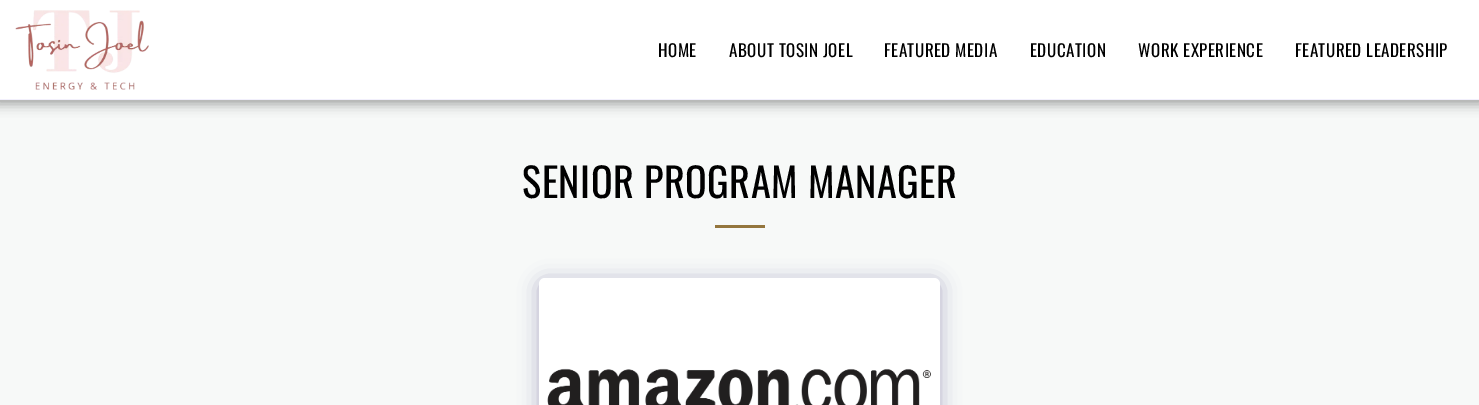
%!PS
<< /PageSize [1479 405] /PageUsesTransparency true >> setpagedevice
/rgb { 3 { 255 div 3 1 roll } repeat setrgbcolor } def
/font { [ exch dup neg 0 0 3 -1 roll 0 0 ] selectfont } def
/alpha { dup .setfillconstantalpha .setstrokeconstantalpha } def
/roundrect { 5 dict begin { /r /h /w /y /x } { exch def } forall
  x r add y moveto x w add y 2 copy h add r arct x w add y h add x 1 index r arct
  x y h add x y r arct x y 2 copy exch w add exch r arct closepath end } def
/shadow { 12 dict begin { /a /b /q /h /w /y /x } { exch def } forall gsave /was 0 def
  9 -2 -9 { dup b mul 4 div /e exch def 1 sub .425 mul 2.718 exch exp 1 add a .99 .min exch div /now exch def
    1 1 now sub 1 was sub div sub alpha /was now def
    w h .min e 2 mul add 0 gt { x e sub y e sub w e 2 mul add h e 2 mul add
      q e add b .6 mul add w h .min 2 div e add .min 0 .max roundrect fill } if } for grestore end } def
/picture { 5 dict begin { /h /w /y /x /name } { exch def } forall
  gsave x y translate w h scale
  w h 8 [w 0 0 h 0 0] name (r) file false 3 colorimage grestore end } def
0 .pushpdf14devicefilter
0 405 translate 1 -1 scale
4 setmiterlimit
247 249 248 rgb
0 0 1479 405 rectfill
0 0 0 rgb
-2 0 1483 104 0 6 0.35 shadow
255 255 255 rgb
0 0 1479 99 rectfill
242 240 252 rgb
0 99 1479 1 rectfill
(img/1.rgb) 15 10 134 80 picture
148 118 62 rgb
715 225 50 3 rectfill
77 63 122 rgb
539 281 401 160 6 10 0.4 shadow
255 255 255 rgb
539 278 401 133 6 roundrect fill
(img/2.rgb) 547 368 384 37 picture
/Oswald-Regular 17 font
0 0 0 rgb
658 57 moveto 0.5 0 (HOME) ashow
729 57 moveto 0.5 0 (ABOUT TOSIN JOEL) ashow
884 57 moveto 0.5 0 (FEATURED MEDIA) ashow
1030 57 moveto 0.5 0 (EDUCATION) ashow
1138 57 moveto 0.5 0 (WORK EXPERIENCE) ashow
1295 57 moveto 0.5 0 (FEATURED LEADERSHIP) ashow
/Oswald-Regular 40.25 font
522 198 moveto 0.5 0 (SENIOR PROGRAM MANAGER) ashow
.poppdf14devicefilter showpage
